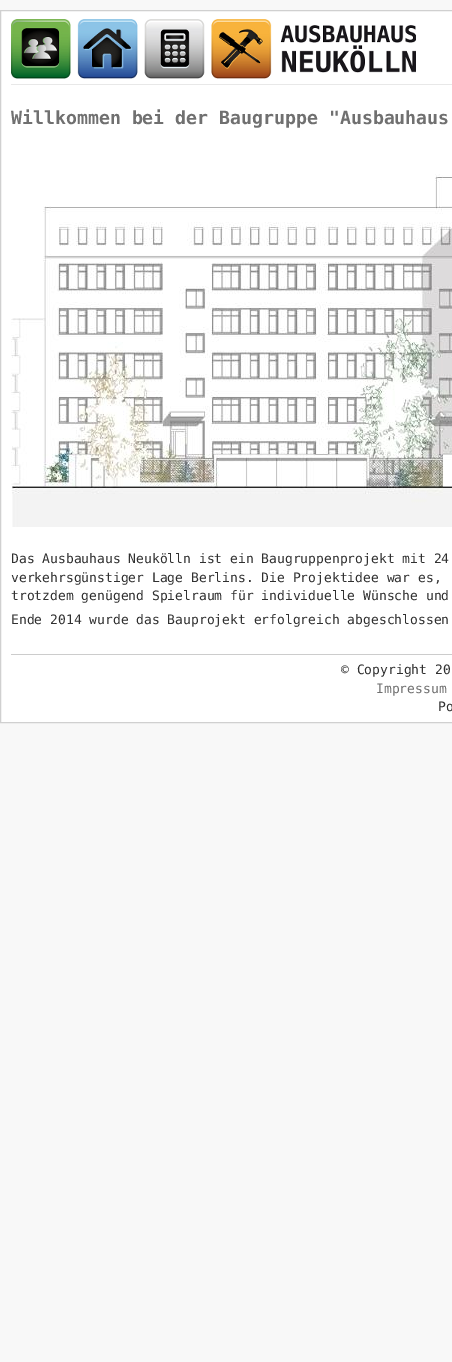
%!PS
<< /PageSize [452 1362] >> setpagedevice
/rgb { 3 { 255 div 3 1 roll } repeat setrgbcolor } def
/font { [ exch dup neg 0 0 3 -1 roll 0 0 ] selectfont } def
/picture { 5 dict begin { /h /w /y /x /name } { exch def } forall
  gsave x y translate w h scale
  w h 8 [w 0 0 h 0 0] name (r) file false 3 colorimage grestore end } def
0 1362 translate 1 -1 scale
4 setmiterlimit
248 248 248 rgb
0 0 452 1362 rectfill
255 255 255 rgb
0.5 10.5 moveto 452.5 10.5 lineto 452.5 722.5 lineto 0.5 722.5 lineto closepath gsave fill grestore
208 208 208 rgb
stroke
(img/1.rgb) 11 19 405 60 picture
232 232 232 rgb
11 84 441 1 rectfill
(img/2.rgb) 11 174 441 353 picture
204 204 204 rgb
11 654 441 1 rectfill
/DejaVuSansMono-Bold 18.2 font
112 112 112 rgb
11 124 moveto (Willkommen bei der Baugruppe "Ausbauhaus) show
/DejaVuSansMono-Regular 13 font
48 48 48 rgb
[
  [(Das Ausbauhaus Neukölln ist ein Baugruppenprojekt mit 24) 11 563]
  [(verkehrsgünstiger Lage Berlins. Die Projektidee war es,) 11 582]
  [(trotzdem genügend Spielraum für individuelle Wünsche und) 11 600]
  [(Ende 2014 wurde das Bauprojekt erfolgreich abgeschlossen) 11 624]
  [(© Copyright 20) 341 674]
] { aload pop moveto show } forall
112 112 112 rgb
376 693 moveto (Impressum) show
48 48 48 rgb
438 711 moveto (Po) show
showpage
